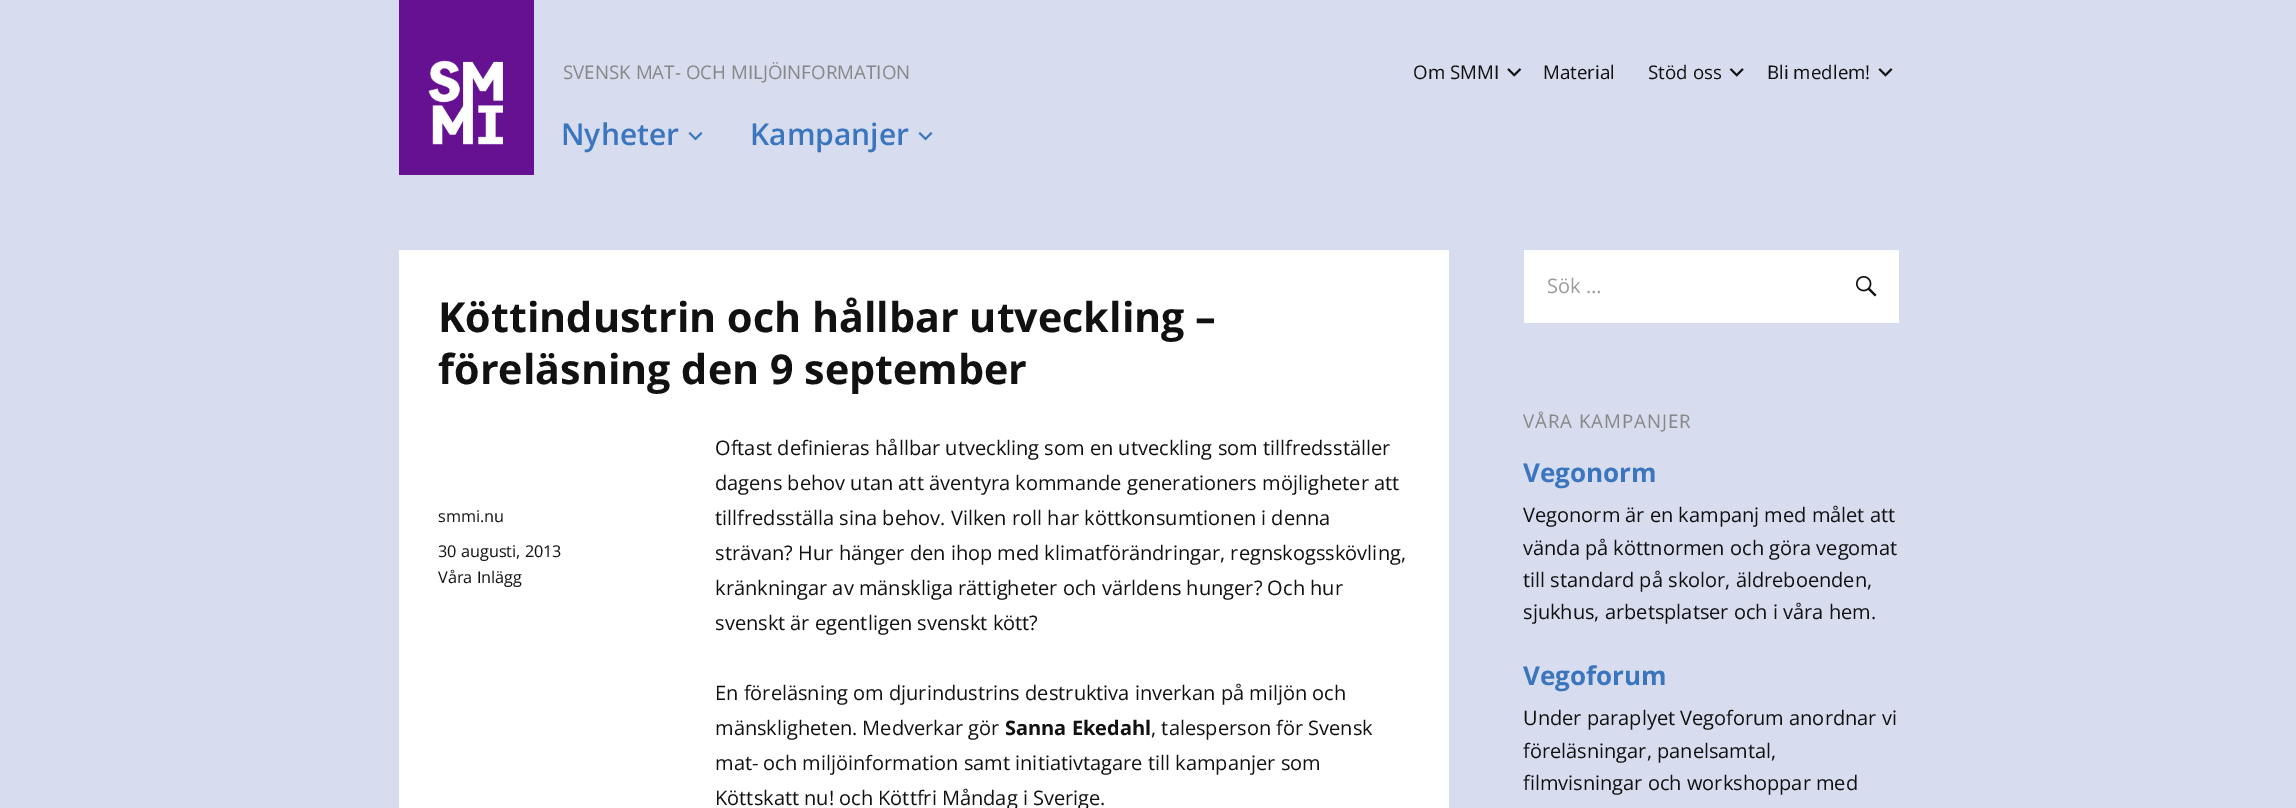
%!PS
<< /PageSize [2296 808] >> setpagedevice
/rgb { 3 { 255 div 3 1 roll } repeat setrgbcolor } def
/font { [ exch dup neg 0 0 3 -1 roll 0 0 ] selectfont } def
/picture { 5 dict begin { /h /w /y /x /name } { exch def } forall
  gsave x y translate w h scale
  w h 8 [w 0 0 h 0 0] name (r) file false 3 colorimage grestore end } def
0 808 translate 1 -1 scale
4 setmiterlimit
215 221 239 rgb
0 0 2296 808 rectfill
102 17 146 rgb
399 0 135 175 rectfill
(img/1.rgb) 428 60 75 85 picture
(img/2.rgb) 1507 68 15 9 picture
(img/3.rgb) 1729 68 15 9 picture
(img/4.rgb) 1878 68 15 9 picture
(img/5.rgb) 688 132 15 9 picture
(img/5.rgb) 918 132 15 9 picture
255 255 255 rgb
399 250 1050 558 rectfill
1524 250 375 73 rectfill
(img/6.rgb) 1855 275 22 22 picture
/OpenSans-Regular 18.75 font
136 136 136 rgb
563 79 moveto (SVENSK MAT- OCH MILJÖINFORMATION) show
17 17 17 rgb
[
  [(Om SMMI) 1413 79]
  [(Material) 1543 79]
  [(Stöd oss) 1648 79]
  [(Bli medlem!) 1767 79]
] { aload pop moveto show } forall
/OpenSans-SemiBold 30 font
59 117 190 rgb
561 145 moveto (Nyheter) show
750 145 moveto (Kampanjer) show
/OpenSans-Bold 41.25 font
17 17 17 rgb
438 332 moveto (Köttindustrin och hållbar utveckling –) show
438 384 moveto (föreläsning den 9 september) show
/OpenSans-Regular 16.25 font
[
  [(smmi.nu) 438 522]
  [(30 augusti, 2013) 438 557]
  [(Våra Inlägg) 438 583]
] { aload pop moveto show } forall
/OpenSans-Regular 20 font
[
  [(Oftast definieras hållbar utveckling som en utveckling som tillfredsställer) 715 455]
  [(dagens behov utan att äventyra kommande generationers möjligheter att) 715 490]
  [(tillfredsställa sina behov. Vilken roll har köttkonsumtionen i denna) 715 525]
  [(strävan? Hur hänger den ihop med klimatförändringar, regnskogsskövling,) 715 560]
  [(kränkningar av mänskliga rättigheter och världens hunger? Och hur) 715 595]
  [(svenskt är egentligen svenskt kött?) 715 630]
  [(En föreläsning om djurindustrins destruktiva inverkan på miljön och) 715 700]
  [(mänskligheten. Medverkar gör) 715 735]
] { aload pop moveto show } forall
/OpenSans-Bold 20 font
1005 735 moveto (Sanna Ekedahl) show
/OpenSans-Regular 20 font
[
  [(, talesperson för Svensk) 1151 735]
  [(mat- och miljöinformation samt initiativtagare till kampanjer som) 715 770]
  [(Köttskatt nu! och Köttfri Måndag i Sverige.) 715 805]
] { aload pop moveto show } forall
155 155 155 rgb
1547 293 moveto (Sök …) show
/OpenSans-Regular 18.75 font
136 136 136 rgb
1523 428 moveto 0.9 0 (VÅRA KAMPANJER) ashow
/OpenSans-Bold 26 font
59 117 190 rgb
1523 482 moveto (Vegonorm) show
/OpenSans-Regular 20 font
17 17 17 rgb
[
  [(Vegonorm är en kampanj med målet att) 1523 522]
  [(vända på köttnormen och göra vegomat) 1523 555]
  [(till standard på skolor, äldreboenden,) 1523 587]
  [(sjukhus, arbetsplatser och i våra hem.) 1523 619]
] { aload pop moveto show } forall
/OpenSans-Bold 26 font
59 117 190 rgb
1523 685 moveto (Vegoforum) show
/OpenSans-Regular 20 font
17 17 17 rgb
[
  [(Under paraplyet Vegoforum anordnar vi) 1523 725]
  [(föreläsningar, panelsamtal,) 1523 758]
  [(filmvisningar och workshoppar med) 1523 790]
] { aload pop moveto show } forall
showpage
